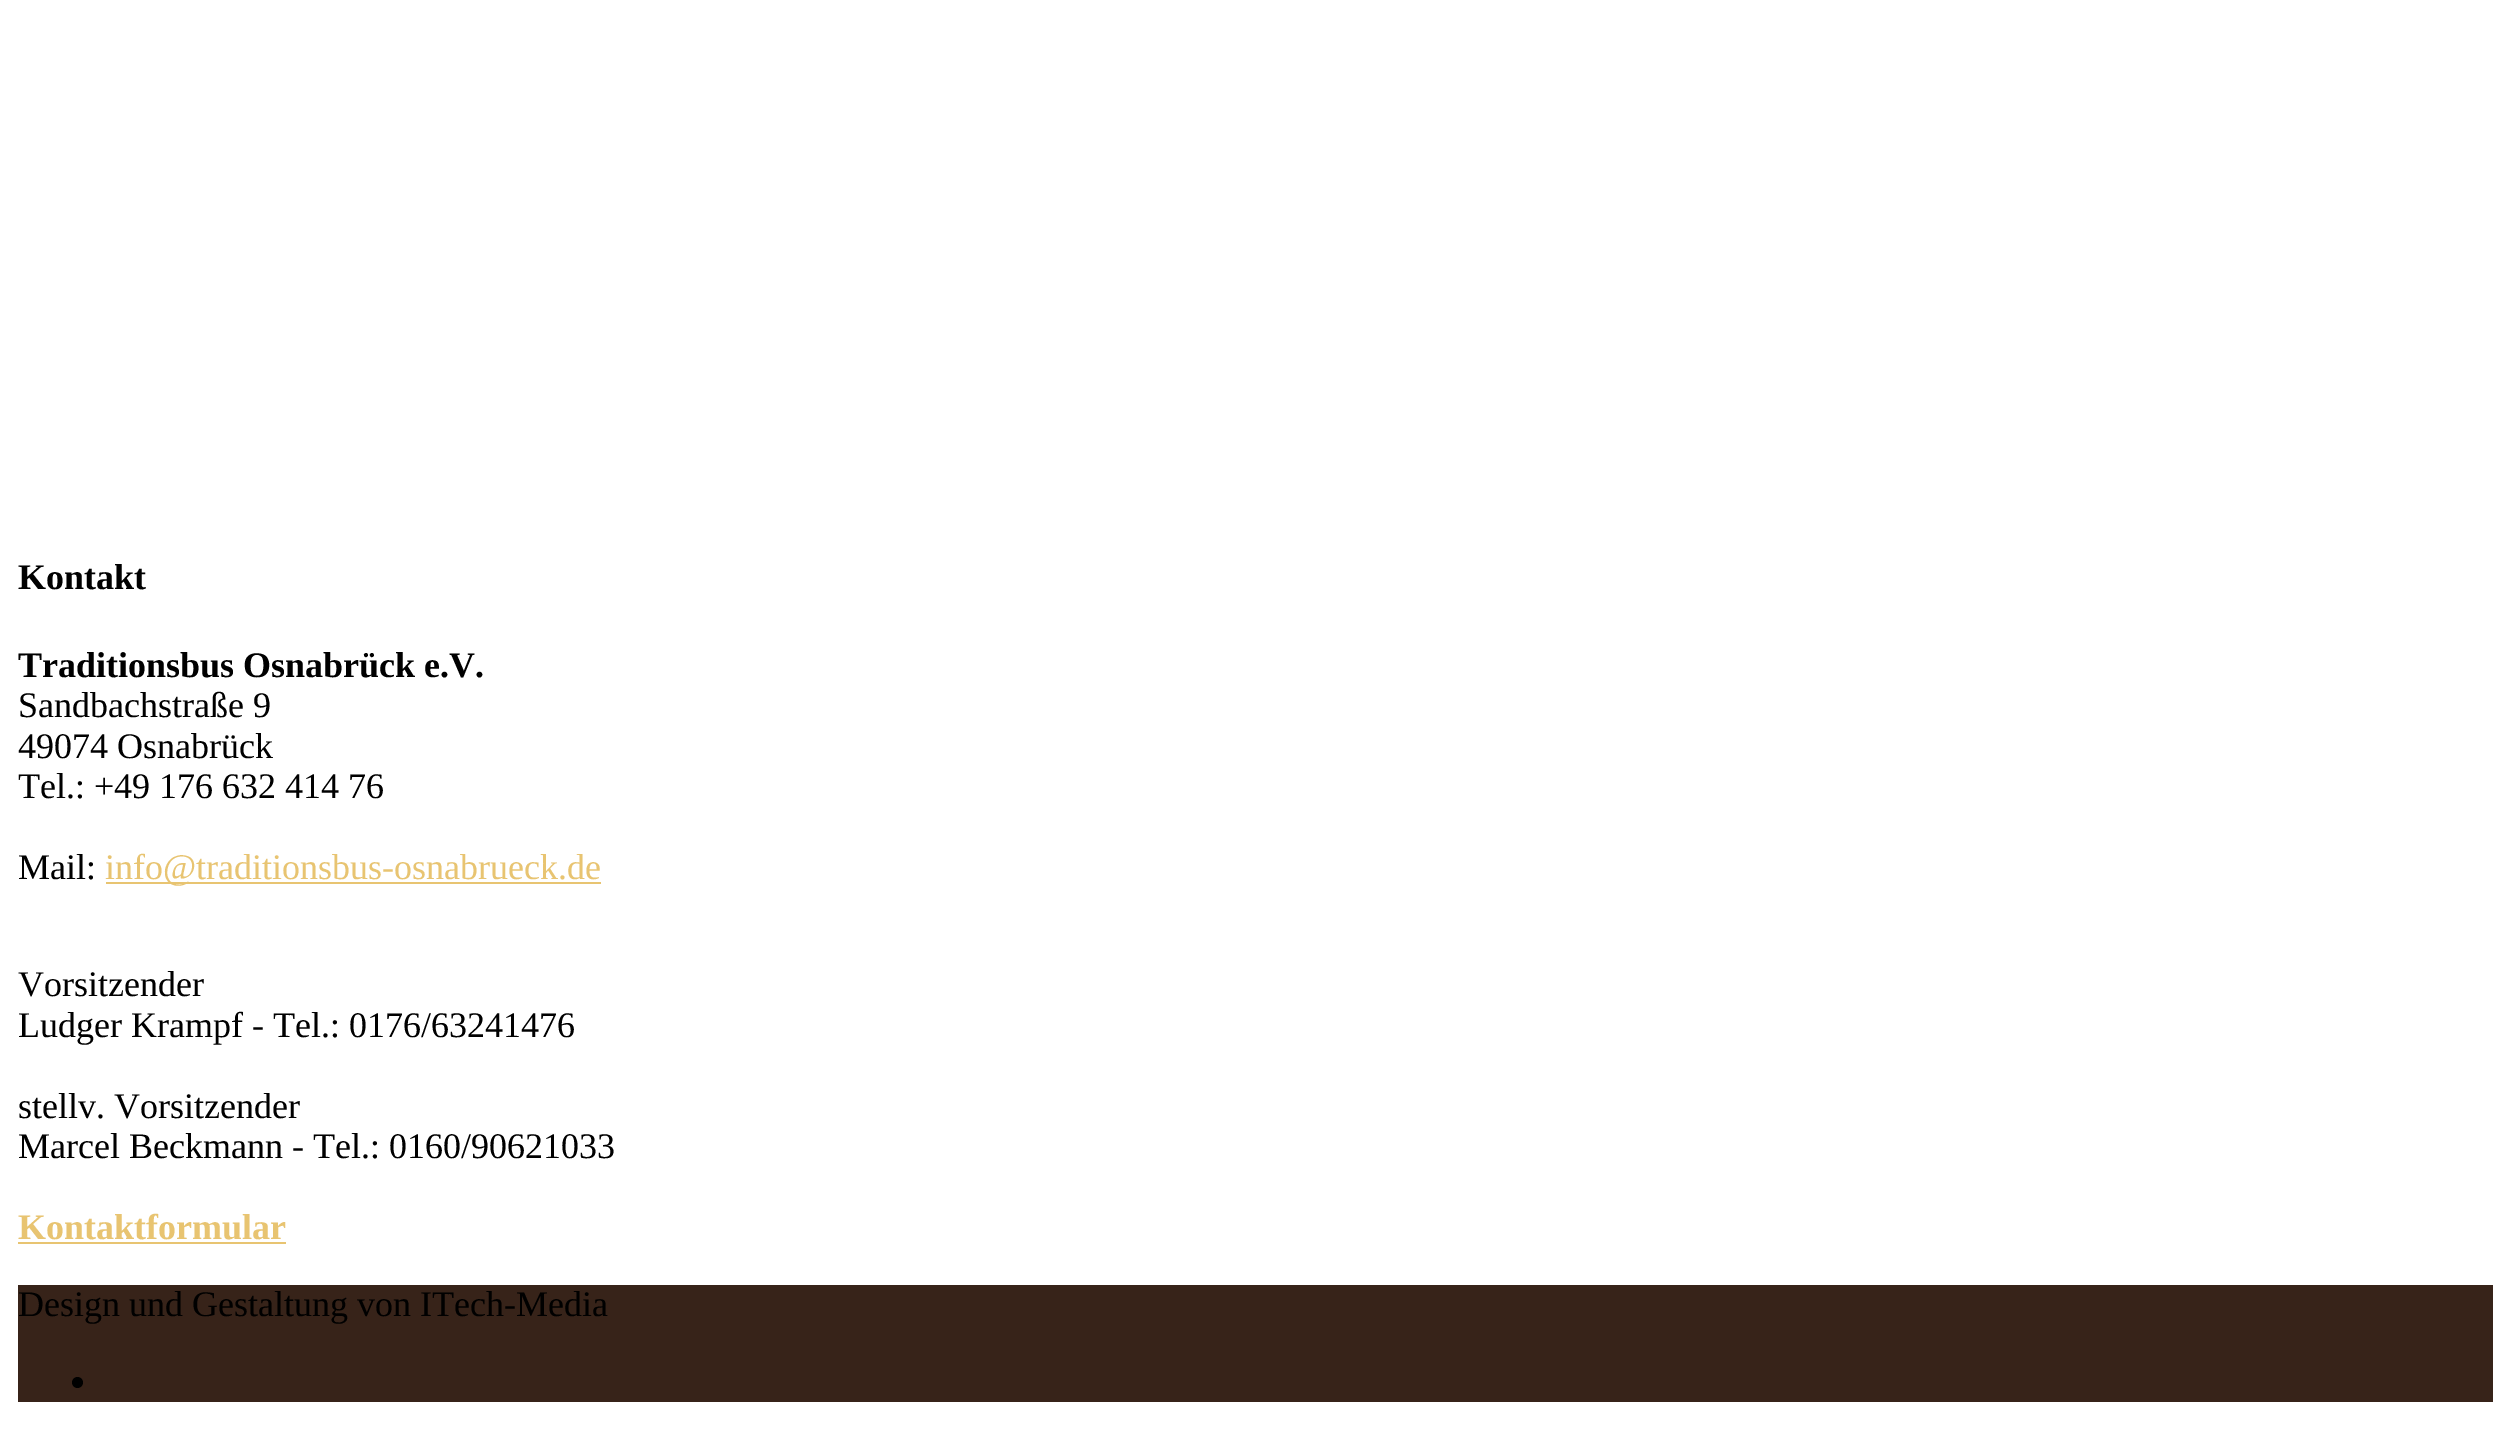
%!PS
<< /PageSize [2511 1436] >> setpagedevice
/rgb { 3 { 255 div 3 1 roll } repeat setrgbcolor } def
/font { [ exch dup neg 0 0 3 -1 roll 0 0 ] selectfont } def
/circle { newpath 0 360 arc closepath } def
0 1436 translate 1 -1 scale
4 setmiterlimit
255 255 255 rgb
0 0 2511 1436 rectfill
[
  [106 882 495 2 232 196 113]
  [18 1242 268 2 232 196 113]
  [18 1285 2475 117 55 35 25]
] { aload pop rgb rectfill } forall
0 0 0 rgb
77.5 1382.5 5.5 circle fill
/LiberationSerif-Bold 36 font
18 589 moveto (Kontakt) show
18 677 moveto (Traditionsbus Osnabrück e.V.) show
/LiberationSerif-Regular 36 font
[
  [(Sandbachstraße 9) 18 717]
  [(49074 Osnabrück) 18 758]
  [(Tel.: +49 176 632 414 76) 18 798]
  [(Mail:) 18 879]
] { aload pop moveto show } forall
232 196 113 rgb
105 879 moveto (info@traditionsbus-osnabrueck.de) show
0 0 0 rgb
[
  [(Vorsitzender) 18 996]
  [(Ludger Krampf - Tel.: 0176/63241476) 18 1037]
  [(stellv. Vorsitzender) 18 1118]
  [(Marcel Beckmann - Tel.: 0160/90621033) 18 1158]
] { aload pop moveto show } forall
/LiberationSerif-Bold 36 font
232 196 113 rgb
18 1239 moveto (Kontaktformular) show
/LiberationSerif-Regular 36 font
0 0 0 rgb
18 1316 moveto (Design und Gestaltung von ITech-Media) show
showpage
